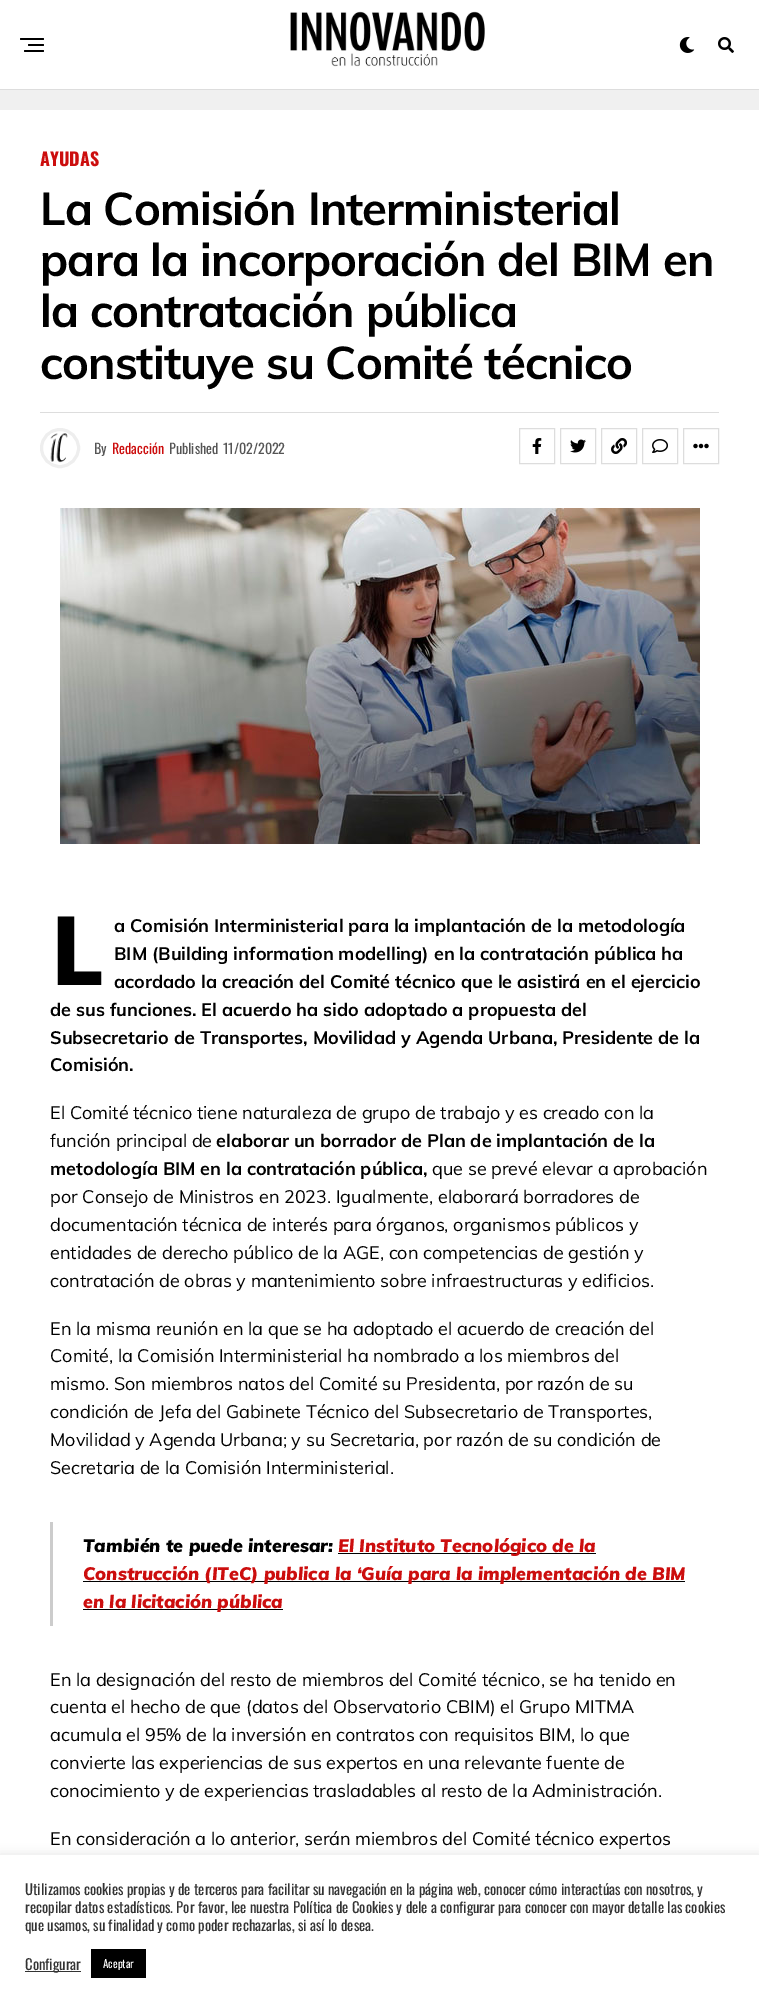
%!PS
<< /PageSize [759 2008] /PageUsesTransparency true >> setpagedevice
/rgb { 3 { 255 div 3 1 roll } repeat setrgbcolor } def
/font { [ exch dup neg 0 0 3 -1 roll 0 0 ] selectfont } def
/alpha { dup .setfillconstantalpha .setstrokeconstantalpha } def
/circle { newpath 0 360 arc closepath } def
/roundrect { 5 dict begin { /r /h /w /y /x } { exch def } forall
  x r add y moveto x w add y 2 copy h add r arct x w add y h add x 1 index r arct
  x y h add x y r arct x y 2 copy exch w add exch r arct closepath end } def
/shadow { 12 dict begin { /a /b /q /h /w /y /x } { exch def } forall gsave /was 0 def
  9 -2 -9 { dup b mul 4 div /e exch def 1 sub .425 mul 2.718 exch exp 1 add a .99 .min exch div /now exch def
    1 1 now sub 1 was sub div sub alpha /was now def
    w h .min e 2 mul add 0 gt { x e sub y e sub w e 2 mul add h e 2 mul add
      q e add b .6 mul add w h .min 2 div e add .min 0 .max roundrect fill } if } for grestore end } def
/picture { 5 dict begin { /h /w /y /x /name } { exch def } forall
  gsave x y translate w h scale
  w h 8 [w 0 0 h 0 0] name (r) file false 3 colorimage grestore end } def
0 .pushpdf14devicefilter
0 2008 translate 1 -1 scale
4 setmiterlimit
240 240 240 rgb
0 0 759 2008 rectfill
255 255 255 rgb
0 0 759 89 rectfill
221 221 221 rgb
0 89 759 1 rectfill
0 0 0 rgb
20 38 24 2 1 roundrect fill
28 44 16 2 1 roundrect fill
24 50 20 2 1 roundrect fill
(img/1.rgb) 290 11 195 56 picture
(img/2.rgb) 679 37 16 16 picture
(img/3.rgb) 718 37 16 16 picture
255 255 255 rgb
0 110 759 1745 rectfill
221 221 221 rgb
40 412 679 1 rectfill
238 238 238 rgb
3 setlinewidth
60 448 18.5 circle stroke
(img/4.rgb) 50 433 18 30 picture
221 221 221 rgb
1 setlinewidth
519.5 428.5 35 35 rectstroke
(img/5.rgb) 532 438 10 16 picture
560.5 428.5 35 35 rectstroke
(img/6.rgb) 570 439 16 14 picture
601.5 428.5 35 35 rectstroke
(img/7.rgb) 611 438 16 16 picture
642.5 428.5 35 35 rectstroke
(img/8.rgb) 652 439 16 14 picture
683.5 428.5 35 35 rectstroke
(img/9.rgb) 693 443 16 6 picture
(img/10.rgb) 60 508 640 336 picture
[
  [50 1522 3 104 204 204 204]
  [338 1553 258 1 0 0 0]
  [83 1581 602 1 0 0 0]
  [83 1609 200 1 0 0 0]
] { aload pop rgb rectfill } forall
172 171 171 rgb
0 1854 759 153 0 5 0.3 shadow
[
  [0 1855 759 153 255 255 255]
  [25 1971 56 1 51 51 51]
  [91 1949 55 29 0 0 0]
] { aload pop rgb rectfill } forall
/Oswald-Bold 18 font
204 14 14 rgb
40 166 moveto (AYUDAS) show
/Muli-Bold 45.5 font
0 0 0 rgb
40 225 moveto -0.9 0 (La Comisión Interministerial) ashow
40 276 moveto -0.9 0 (para la incorporación del BIM en) ashow
40 327 moveto -0.9 0 (la contratación pública) ashow
40 379 moveto -0.9 0 (constituye su Comité técnico) ashow
/Oswald-Regular 14 font
85 85 85 rgb
94 454 moveto (By) show
204 14 14 rgb
112 454 moveto (Redacción) show
85 85 85 rgb
169 454 moveto (Published) show
223 454 moveto (11/02/2022) show
/NotoSans-ExtraBold 96 font
0 0 0 rgb
50 985 moveto (L) show
/Muli-Bold 18 font
[
  [(a Comisión Interministerial para la implantación de la metodología) 114 932]
  [(BIM \(Building information modelling\) en la contratación pública ha) 114 960]
  [(acordado la creación del Comité técnico que le asistirá en el ejercicio) 114 988]
  [(de sus funciones. El acuerdo ha sido adoptado a propuesta del) 50 1016]
  [(Subsecretario de Transportes, Movilidad y Agenda Urbana, Presidente de la) 50 1044]
  [(Comisión.) 50 1071]
] { aload pop moveto show } forall
/Muli-Regular 18 font
50 1119 moveto (El Comité técnico tiene naturaleza de grupo de trabajo y es creado con la) show
50 1147 moveto (función principal de) show
/Muli-Bold 18 font
216 1147 moveto (elaborar un borrador de Plan de implantación de la) show
50 1175 moveto (metodología BIM en la contratación pública,) show
/Muli-Regular 18 font
[
  [(que se prevé elevar a aprobación) 432 1175]
  [(por Consejo de Ministros en 2023. Igualmente, elaborará borradores de) 50 1203]
  [(documentación técnica de interés para órganos, organismos públicos y) 50 1231]
  [(entidades de derecho público de la AGE, con competencias de gestión y) 50 1259]
  [(contratación de obras y mantenimiento sobre infraestructuras y edificios.) 50 1287]
  [(En la misma reunión en la que se ha adoptado el acuerdo de creación del) 50 1335]
  [(Comité, la Comisión Interministerial ha nombrado a los miembros del) 50 1362]
  [(mismo. Son miembros natos del Comité su Presidenta, por razón de su) 50 1390]
  [(condición de Jefa del Gabinete Técnico del Subsecretario de Transportes,) 50 1418]
  [(Movilidad y Agenda Urbana; y su Secretaria, por razón de su condición de) 50 1446]
  [(Secretaria de la Comisión Interministerial.) 50 1474]
] { aload pop moveto show } forall
/Muli-BlackItalic 18 font
83 1552 moveto (También te puede interesar:) show
204 14 14 rgb
[
  [(El Instituto Tecnológico de la) 338 1552]
  [(Construcción \(ITeC\) publica la ‘Guía para la implementación de BIM) 83 1580]
  [(en la licitación pública) 83 1608]
] { aload pop moveto show } forall
/Muli-Regular 18 font
0 0 0 rgb
[
  [(En la designación del resto de miembros del Comité técnico, se ha tenido en) 50 1686]
  [(cuenta el hecho de que \(datos del Observatorio CBIM\) el Grupo MITMA) 50 1713]
  [(acumula el 95% de la inversión en contratos con requisitos BIM, lo que) 50 1741]
  [(convierte las experiencias de sus expertos en una relevante fuente de) 50 1769]
  [(conocimiento y de experiencias trasladables al resto de la Administración.) 50 1797]
  [(En consideración a lo anterior, serán miembros del Comité técnico expertos) 50 1845]
] { aload pop moveto show } forall
/Oswald-Regular 14.65 font
51 51 51 rgb
[
  [(Utilizamos cookies propias y de terceros para facilitar su navegación en la página web, conocer cómo interactúas con nosotros, y) 25 1895]
  [(recopilar datos estadísticos. Por favor, lee nuestra Política de Cookies y dele a configurar para conocer con mayor detalle las cookies) 25 1913]
  [(que usamos, su finalidad y como poder rechazarlas, si así lo desea.) 25 1931]
  [(Configurar) 25 1970]
] { aload pop moveto show } forall
/Oswald-Regular 11 font
255 255 255 rgb
103 1968 moveto (Aceptar) show
.poppdf14devicefilter showpage
